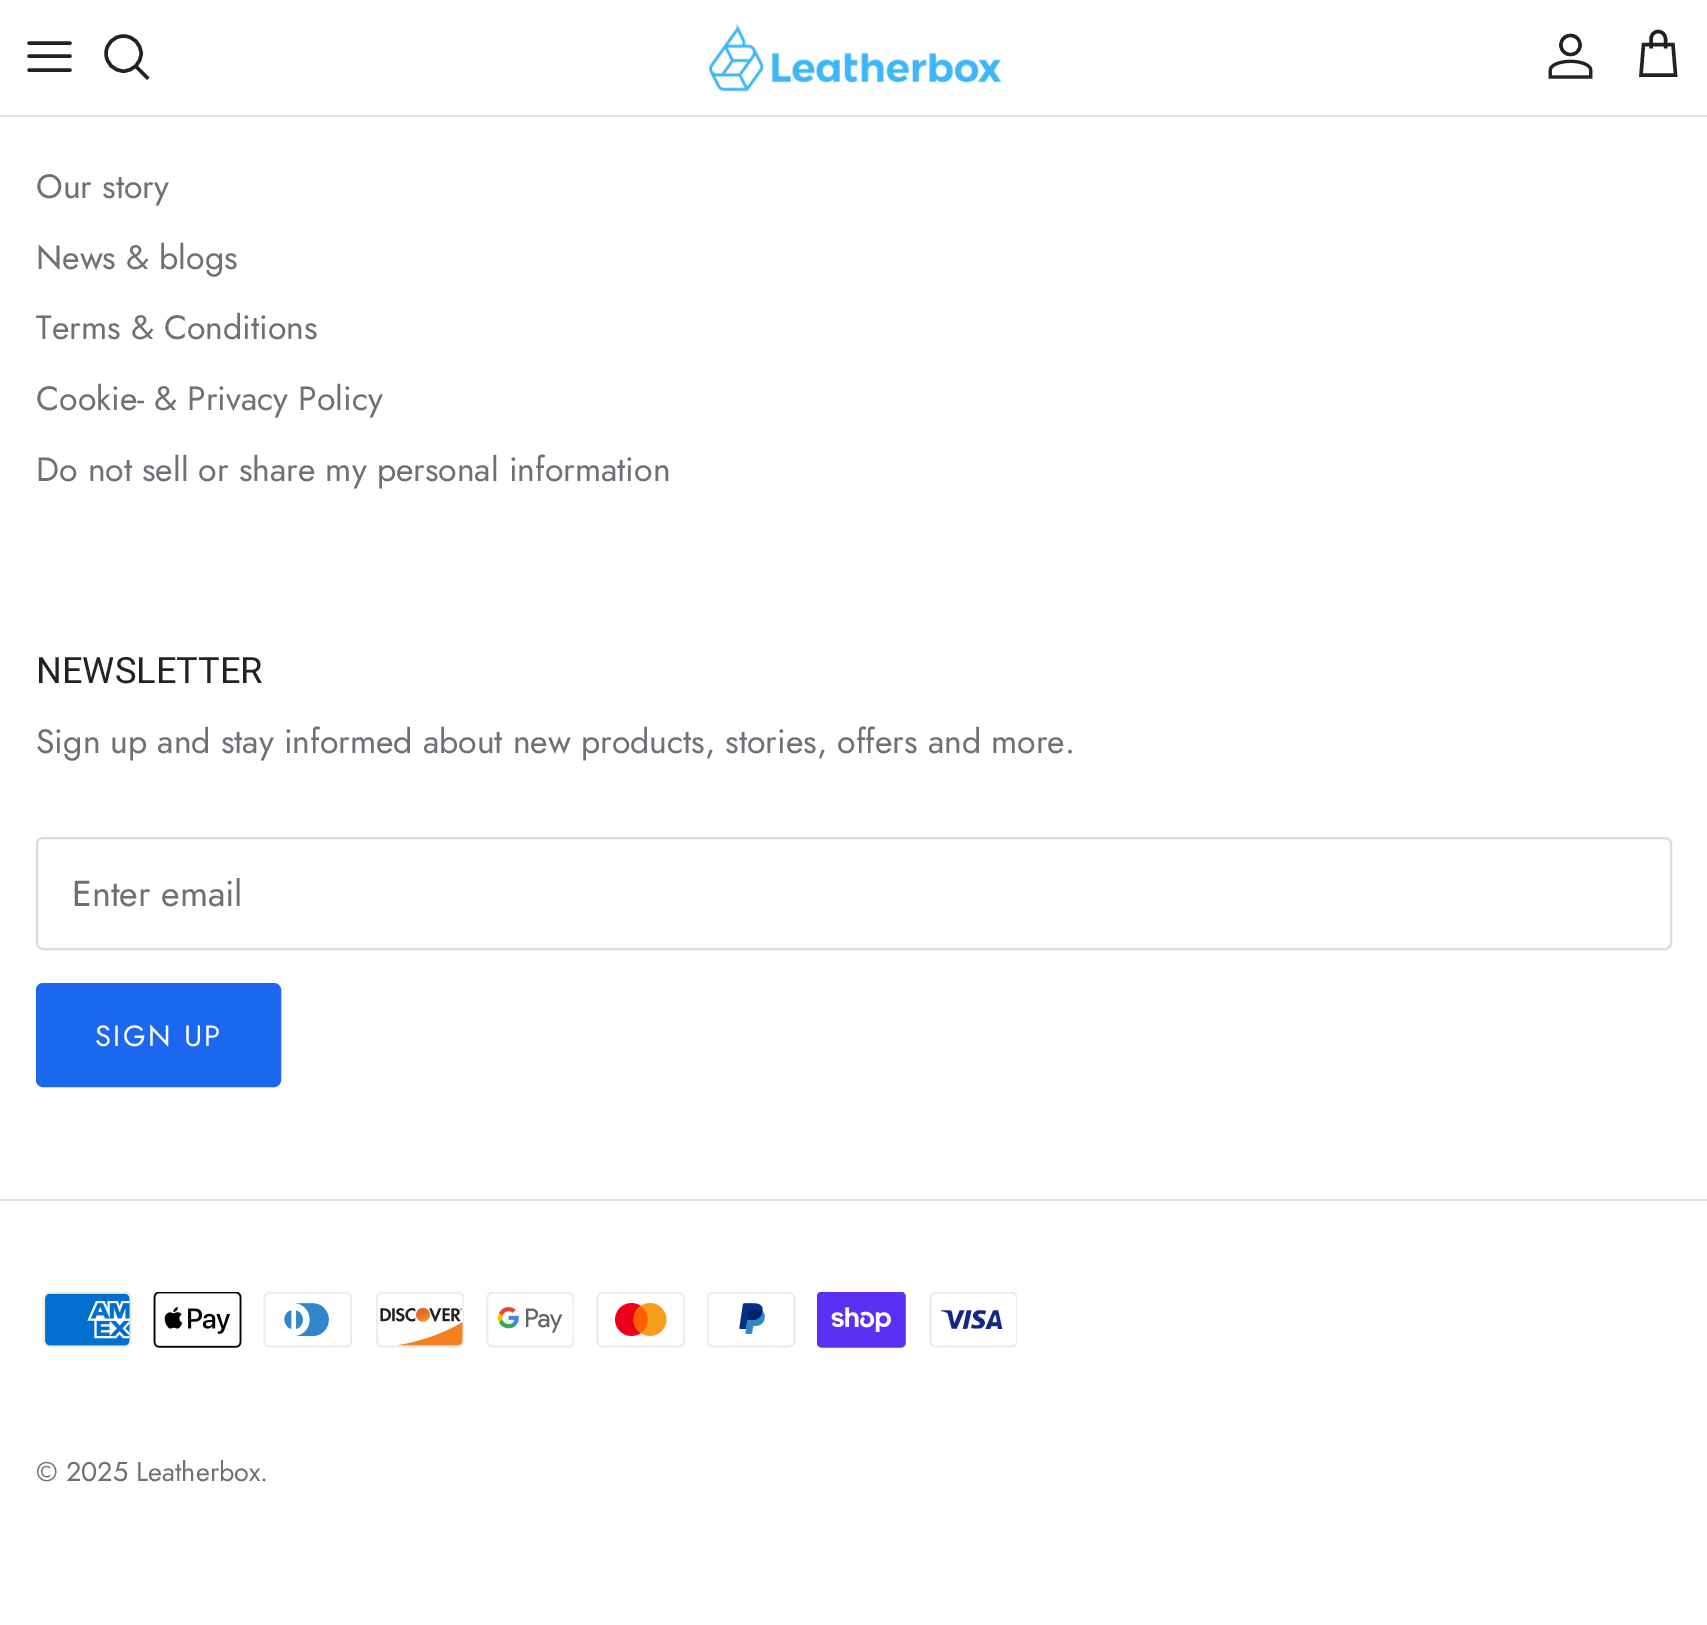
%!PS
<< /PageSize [1707 1625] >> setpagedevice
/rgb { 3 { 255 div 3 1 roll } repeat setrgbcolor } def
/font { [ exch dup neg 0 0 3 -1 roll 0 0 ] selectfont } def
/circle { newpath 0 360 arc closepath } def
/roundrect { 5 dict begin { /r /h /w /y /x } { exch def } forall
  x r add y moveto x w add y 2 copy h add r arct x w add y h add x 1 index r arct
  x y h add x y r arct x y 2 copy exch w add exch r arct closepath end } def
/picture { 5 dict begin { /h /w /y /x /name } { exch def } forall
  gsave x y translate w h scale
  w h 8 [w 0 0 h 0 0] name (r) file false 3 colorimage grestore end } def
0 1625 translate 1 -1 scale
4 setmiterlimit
255 255 255 rgb
0 0 1707 1625 rectfill
226 226 226 rgb
0 115 1707 2 rectfill
32 34 35 rgb
3.4 setlinewidth
1 setlinecap
1 setlinejoin
29 56 moveto 70 56 lineto 29 43 moveto 70 43 lineto 29 70 moveto 70 70 lineto stroke
0 setlinecap
0 setlinejoin
123.5 53.5 17.5 circle stroke
2 setlinecap
137 67.5 moveto 147 77.5 lineto stroke
(img/1.rgb) 708 23 294 69 picture
(img/2.rgb) 1548 33 45 46 picture
0 setlinecap
1665.5 48.5 moveto 1665.5 39 lineto 1665.5 35 1662.5 31.5 1658 31.5 curveto 1654 31.5 1651 35 1651 39 curveto 1651 48.5 lineto 1643.5 44.5 moveto 1673 44.5 lineto 1675.5 75 lineto 1641 75 lineto closepath stroke
219 220 221 rgb
2 setlinewidth
37 838 1634 111 6 roundrect stroke
27 104 239 rgb
37 984 243 102 6 roundrect gsave fill grestore
stroke
224 224 224 rgb
0 1199 1707 2 rectfill
(img/3.rgb) 43 1292 89 56 picture
(img/4.rgb) 153 1292 89 56 picture
(img/5.rgb) 263 1292 89 56 picture
(img/6.rgb) 376 1292 88 56 picture
(img/7.rgb) 486 1292 88 56 picture
(img/8.rgb) 596 1292 89 56 picture
(img/9.rgb) 707 1292 89 56 picture
(img/10.rgb) 817 1292 89 56 picture
(img/11.rgb) 929 1292 88 56 picture
/Jost-Regular 33.75 font
109 113 117 rgb
[
  [(Our story) 36 198]
  [(News & blogs) 36 269]
  [(Terms & Conditions) 36 339]
  [(Cookie- & Privacy Policy) 36 410]
  [(Do not sell or share my personal information) 36 481]
] { aload pop moveto show } forall
/Roboto-Regular 36.25 font
32 34 35 rgb
36 683 moveto (NEWSLETTER) show
/Jost-Regular 33.75 font
109 113 117 rgb
36 753 moveto (Sign up and stay informed about new products, stories, offers and more.) show
/Jost-Regular 36 font
72 906 moveto (Enter email) show
/Jost-Regular 29.25 font
255 255 255 rgb
95 1046 moveto 2.25 0 (SIGN UP) ashow
/Jost-Regular 27 font
109 113 117 rgb
36 1481 moveto (© 2025 Leatherbox.) show
showpage
